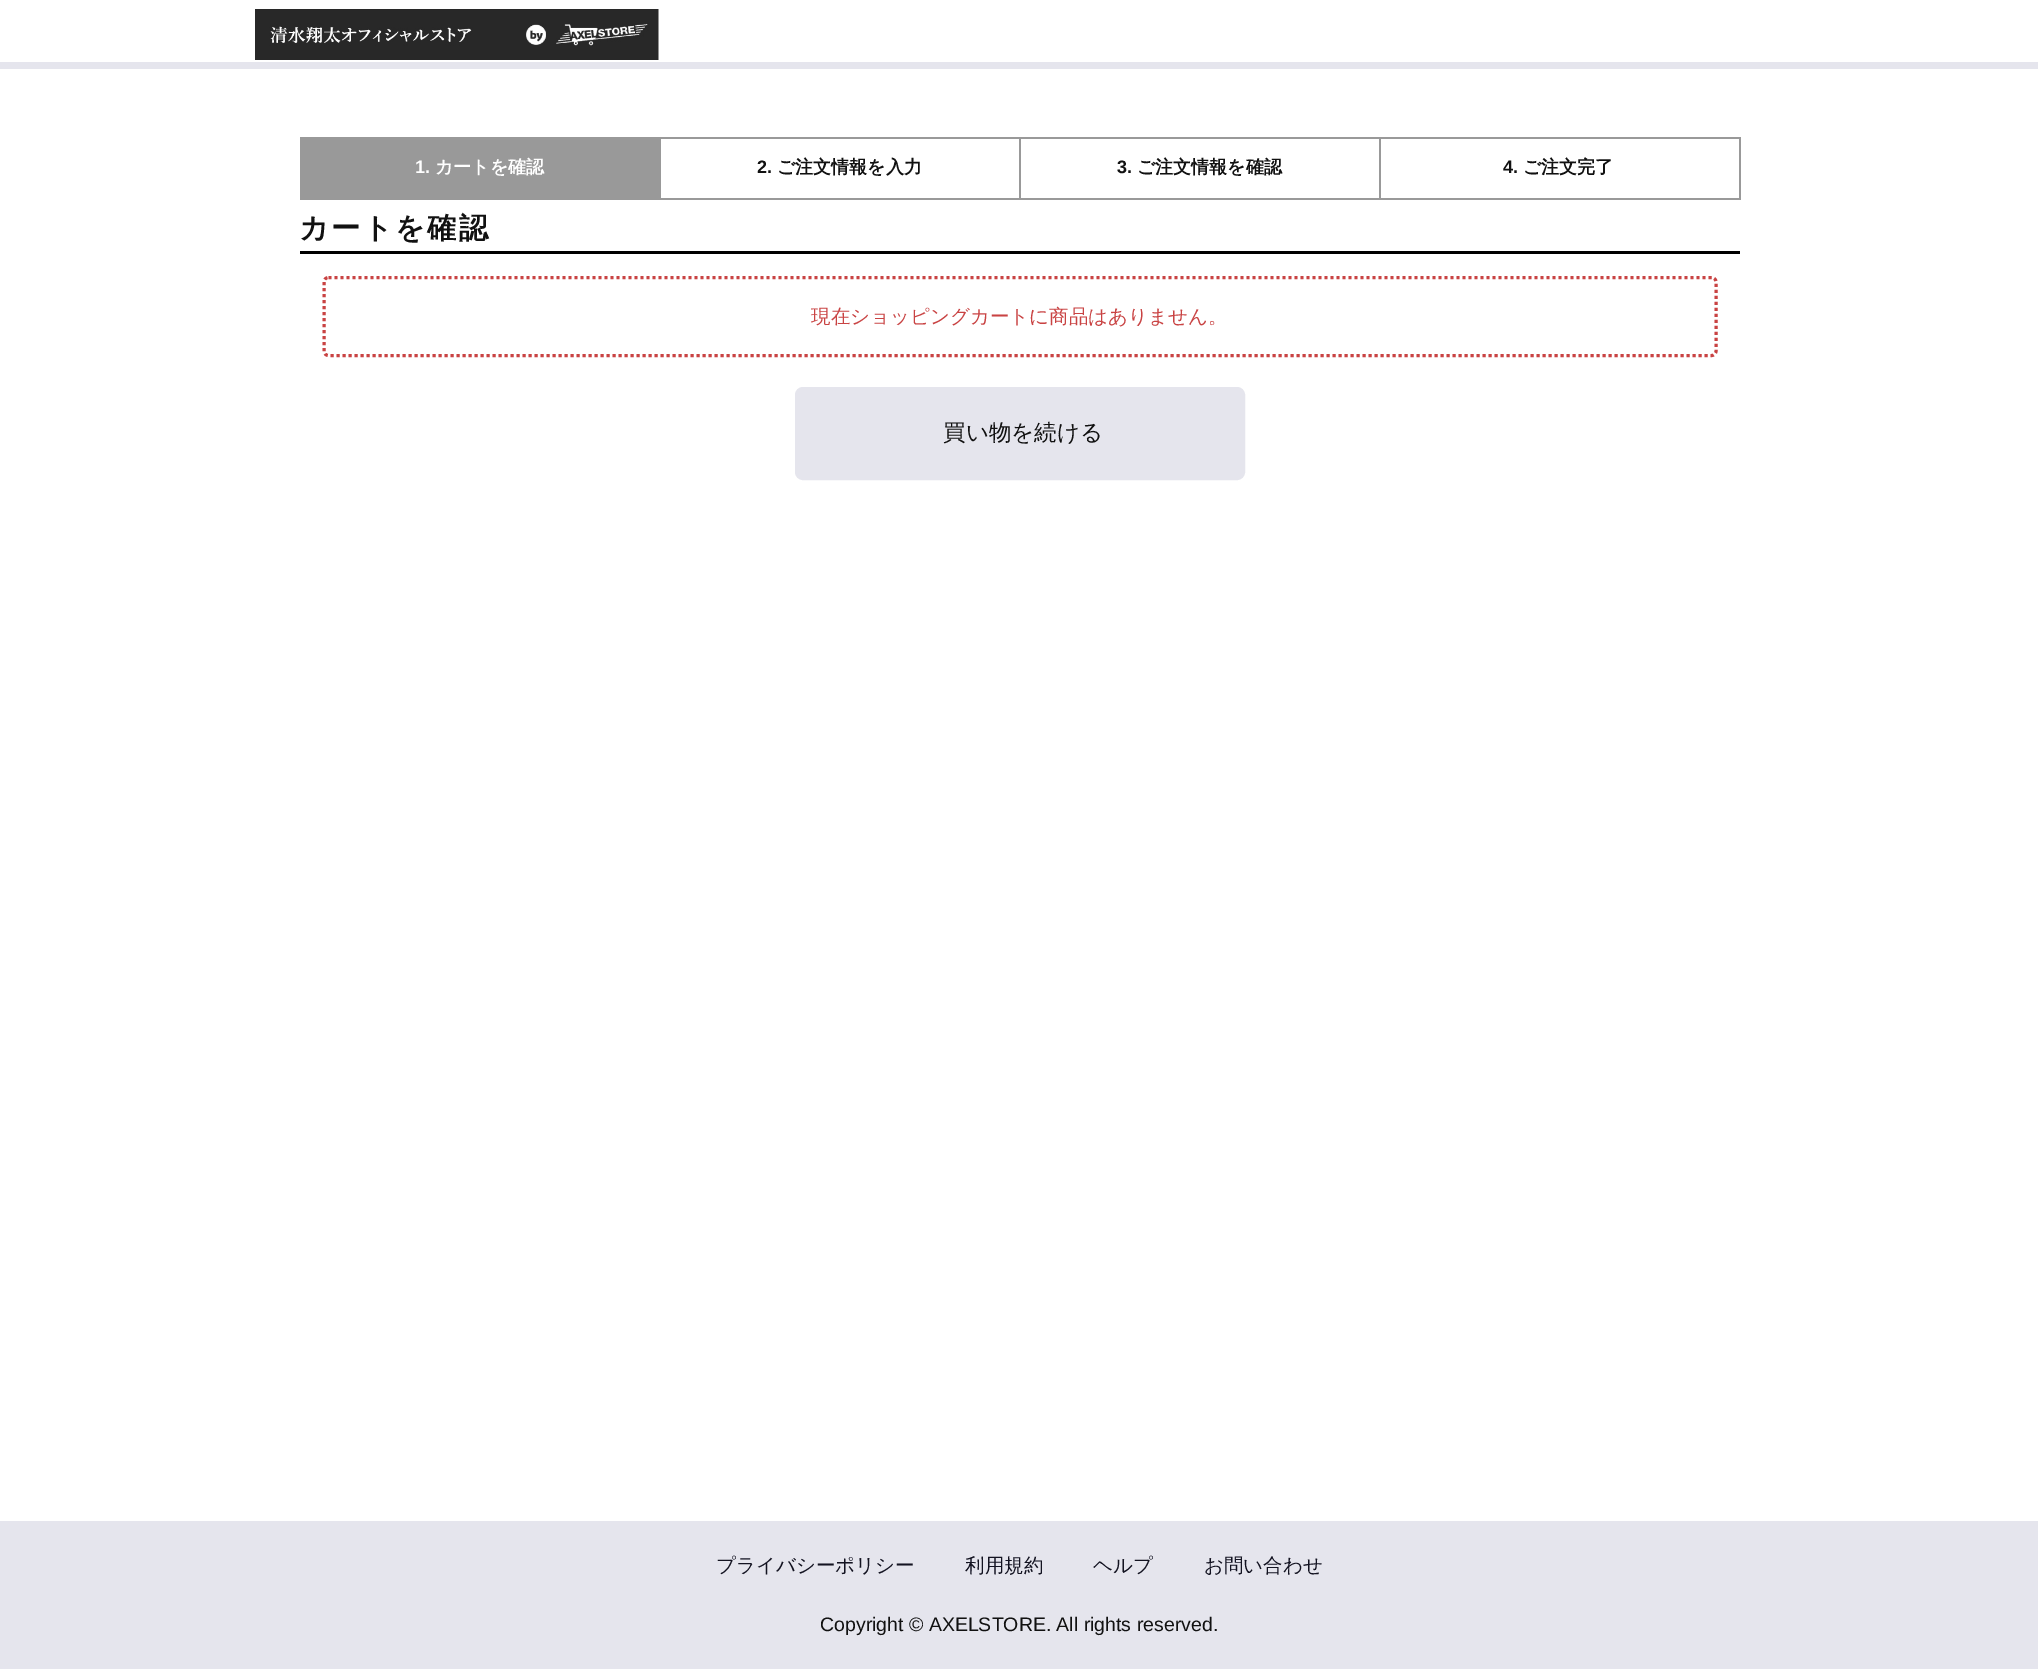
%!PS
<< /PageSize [2038 1669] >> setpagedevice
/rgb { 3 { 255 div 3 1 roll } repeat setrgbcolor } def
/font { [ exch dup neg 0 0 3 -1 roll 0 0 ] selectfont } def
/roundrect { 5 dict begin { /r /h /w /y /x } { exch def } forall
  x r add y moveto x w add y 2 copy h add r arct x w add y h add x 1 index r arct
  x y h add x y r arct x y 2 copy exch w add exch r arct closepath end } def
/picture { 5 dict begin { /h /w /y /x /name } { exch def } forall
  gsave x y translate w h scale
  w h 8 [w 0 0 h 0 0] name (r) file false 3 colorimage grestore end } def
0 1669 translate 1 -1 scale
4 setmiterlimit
255 255 255 rgb
0 0 2038 1669 rectfill
229 229 237 rgb
0 62 2038 7 rectfill
(img/1.rgb) 255 9 404 51 picture
[
  [300 139 359 59 153 153 153]
  [1379 137 361 2 153 153 153]
  [1739 137 2 63 153 153 153]
  [1379 198 361 2 153 153 153]
  [1379 137 2 63 153 153 153]
  [1019 137 361 2 153 153 153]
  [1019 198 361 2 153 153 153]
  [1019 137 2 63 153 153 153]
  [659 137 361 2 153 153 153]
  [659 198 361 2 153 153 153]
  [659 137 2 63 153 153 153]
  [300 137 360 2 153 153 153]
  [300 198 360 2 153 153 153]
  [300 251 1440 3 0 0 0]
] { aload pop rgb rectfill } forall
201 67 67 rgb
3 setlinewidth
[3 3] 0 setdash
328.5 277.5 moveto 1711.5 277.5 lineto 1714 277.5 1716 279.5 1716 282 curveto 1716 351 lineto 1716 353.5 1714 355.5 1711.5 355.5 curveto 328.5 355.5 lineto 326 355.5 324 353.5 324 351 curveto 324 282 lineto 324 279.5 326 277.5 328.5 277.5 curveto closepath stroke
229 229 237 rgb
796 388 448 91 7 roundrect gsave fill grestore
2 setlinewidth
[] 0 setdash
stroke
0 1521 2038 148 rectfill
/LiberationSans-Bold 18 font
255 255 255 rgb
415 173 moveto (1.) show
/WenQuanYiZenHei-Bold 18 font
435 173 moveto (カートを確認) show
/LiberationSans-Bold 18 font
17 17 17 rgb
757 173 moveto (2.) show
/WenQuanYiZenHei-Bold 18 font
777 173 moveto (ご注文情報を入力) show
/LiberationSans-Bold 18 font
1117 173 moveto (3.) show
/WenQuanYiZenHei-Bold 18 font
1137 173 moveto (ご注文情報を確認) show
/LiberationSans-Bold 18 font
1503 173 moveto (4.) show
/WenQuanYiZenHei-Bold 18 font
1523 173 moveto (ご注文完了) show
/WenQuanYiZenHei-Bold 29.25 font
299 238 moveto 2.25 0 (カートを確認) ashow
/WenQuanYiZenHei-Medium 19.5 font
201 67 67 rgb
811 323 moveto (現在ショッピングカートに商品はありません。) show
/WenQuanYiZenHei-Medium 22.5 font
17 17 17 rgb
943 440 moveto (買い物を続ける) show
/WenQuanYiZenHei-Medium 19.5 font
19 19 33 rgb
[
  [(プライバシーポリシー) 716 1572]
  [(利用規約) 965 1572]
  [(ヘルプ) 1093 1572]
  [(お問い合わせ) 1204 1572]
] { aload pop moveto show } forall
/LiberationSans-Regular 19.5 font
17 17 17 rgb
820 1631 moveto (Copyright © AXELSTORE. All rights reserved.) show
showpage
